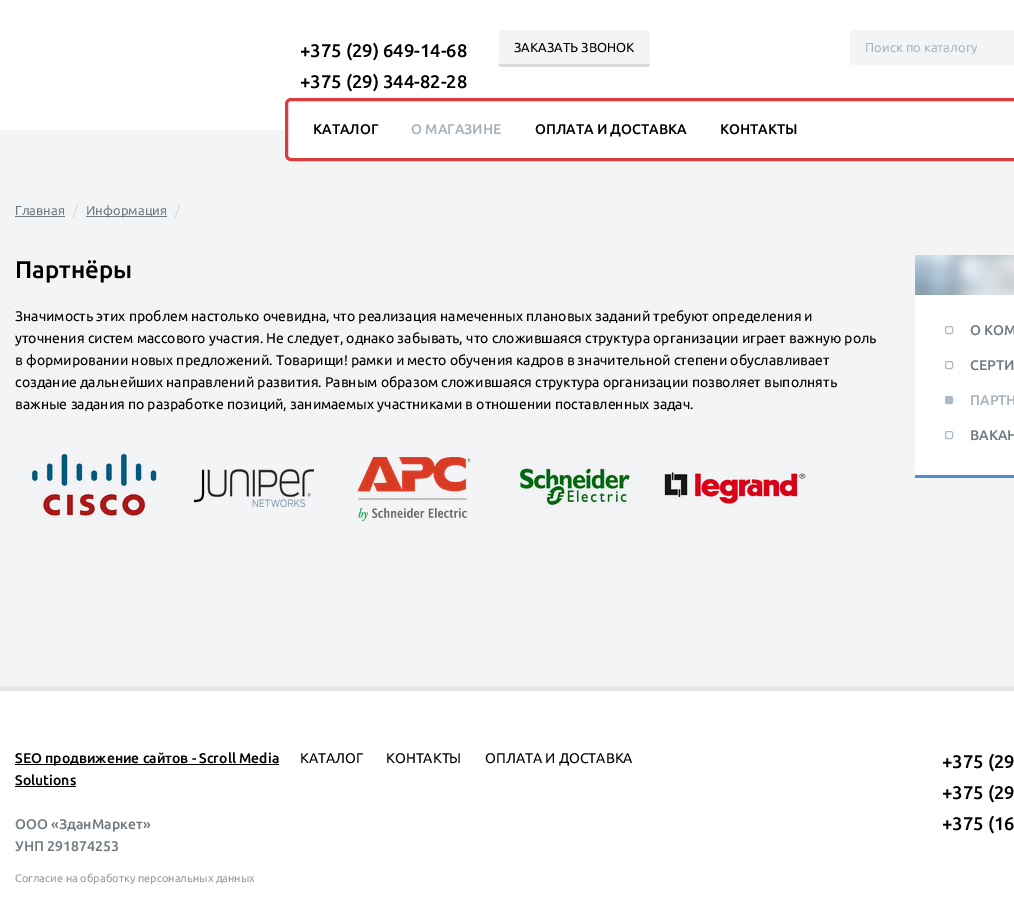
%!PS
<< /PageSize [1014 901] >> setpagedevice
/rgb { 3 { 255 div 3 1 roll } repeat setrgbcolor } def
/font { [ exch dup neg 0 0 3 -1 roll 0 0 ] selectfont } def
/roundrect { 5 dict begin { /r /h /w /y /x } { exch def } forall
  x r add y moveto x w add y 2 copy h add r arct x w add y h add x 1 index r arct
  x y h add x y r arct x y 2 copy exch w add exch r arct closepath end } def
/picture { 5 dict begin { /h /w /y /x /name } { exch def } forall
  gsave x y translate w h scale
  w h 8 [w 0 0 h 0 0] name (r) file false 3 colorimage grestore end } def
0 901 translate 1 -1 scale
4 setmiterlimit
243 244 246 rgb
0 0 1014 901 rectfill
255 255 255 rgb
0 0 1014 130 rectfill
218 219 221 rgb
499 61 moveto 499 64 lineto 499 66 500 67 502 67 curveto 647 67 lineto 649 67 650 66 650 64 curveto 650 61 lineto 650 63 649 64 647 64 curveto 502 64 lineto 500 64 499 63 499 61 curveto closepath fill
243 244 246 rgb
499 30 151 34 3 roundrect fill
850 30 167 35 3 roundrect fill
255 255 255 rgb
286.5 99.5 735 60 4.5 roundrect gsave fill grestore
219 61 61 rgb
3 setlinewidth
stroke
113 122 129 rgb
15 216 50 1 rectfill
86 216 81 1 rectfill
(img/1.rgb) 31 453 128 65 picture
(img/2.rgb) 194 469 120 40 picture
(img/3.rgb) 351 453 121 72 picture
(img/4.rgb) 520 462 112 47 picture
(img/5.rgb) 664 469 143 40 picture
255 255 255 rgb
915 295 99 180 rectfill
(img/6.rgb) 915 255 99 40 picture
82 141 202 rgb
915 475 99 3 rectfill
173 186 198 rgb
1 setlinewidth
945.5 326.5 7 7 1.5 roundrect stroke
945.5 361.5 7 7 1.5 roundrect stroke
945.5 396.5 7 7 1.5 roundrect gsave fill grestore
stroke
945.5 431.5 7 7 1.5 roundrect stroke
[
  [0 691 1014 210 255 255 255]
  [0 686 1014 5 229 230 232]
  [15 764 264 1 0 0 0]
  [15 786 61 1 0 0 0]
] { aload pop rgb rectfill } forall
/Ubuntu-Medium 18.25 font
300 57 moveto (+375 \(29\) 649-14-68) show
300 88 moveto (+375 \(29\) 344-82-28) show
/Ubuntu-Regular 13 font
514 52 moveto (ЗАКАЗАТЬ ЗВОНОК) show
gsave
865 40 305 14 rectclip
169 183 193 rgb
865 52 moveto (Поиск по каталогу) show
grestore
/Ubuntu-Medium 14 font
313 134 moveto (КАТАЛОГ) show
165 177 187 rgb
411 134 moveto (О МАГАЗИНЕ) show
0 0 0 rgb
535 134 moveto (ОПЛАТА И ДОСТАВКА) show
720 134 moveto (КОНТАКТЫ) show
/Ubuntu-Regular 13 font
113 122 129 rgb
15 215 moveto (Главная) show
/Ubuntu-Light 13 font
204 204 204 rgb
73 215 moveto (/) show
/Ubuntu-Regular 13 font
113 122 129 rgb
86 215 moveto (Информация) show
/Ubuntu-Light 13 font
204 204 204 rgb
175 215 moveto (/) show
/Ubuntu-Medium 24 font
0 0 0 rgb
15 278 moveto (Партнёры) show
/Ubuntu-Regular 14 font
[
  [(Значимость этих проблем настолько очевидна, что реализация намеченных плановых заданий требуют определения и) 15 321]
  [(уточнения систем массового участия. Не следует, однако забывать, что сложившаяся структура организации играет важную роль) 15 343]
  [(в формировании новых предложений. Товарищи! рамки и место обучения кадров в значительной степени обуславливает) 15 365]
  [(создание дальнейших направлений развития. Равным образом сложившаяся структура организации позволяет выполнять) 15 387]
  [(важные задания по разработке позиций, занимаемых участниками в отношении поставленных задач.) 15 409]
] { aload pop moveto show } forall
/Ubuntu-Medium 14 font
113 122 129 rgb
970 335 moveto (О КОМ) show
970 370 moveto (СЕРТИ) show
165 177 187 rgb
970 405 moveto (ПАРТН) show
113 122 129 rgb
970 440 moveto (ВАКАН) show
0 0 0 rgb
15 763 moveto (SEO продвижение сайтов - Scroll Media) show
15 785 moveto (Solutions) show
113 122 129 rgb
15 829 moveto (ООО «ЗданМаркет») show
15 851 moveto (УНП 291874253) show
/Ubuntu-Regular 14 font
0 0 0 rgb
[
  [(КАТАЛОГ) 300 763]
  [(КОНТАКТЫ) 386 763]
  [(ОПЛАТА И ДОСТАВКА) 485 763]
] { aload pop moveto show } forall
/Ubuntu-Medium 18.25 font
[
  [(+375 \(29) 942 768]
  [(+375 \(29) 942 799]
  [(+375 \(16) 942 830]
] { aload pop moveto show } forall
/Ubuntu-Regular 11 font
150 158 164 rgb
15 882 moveto (Согласие на обработку персональных данных) show
showpage
